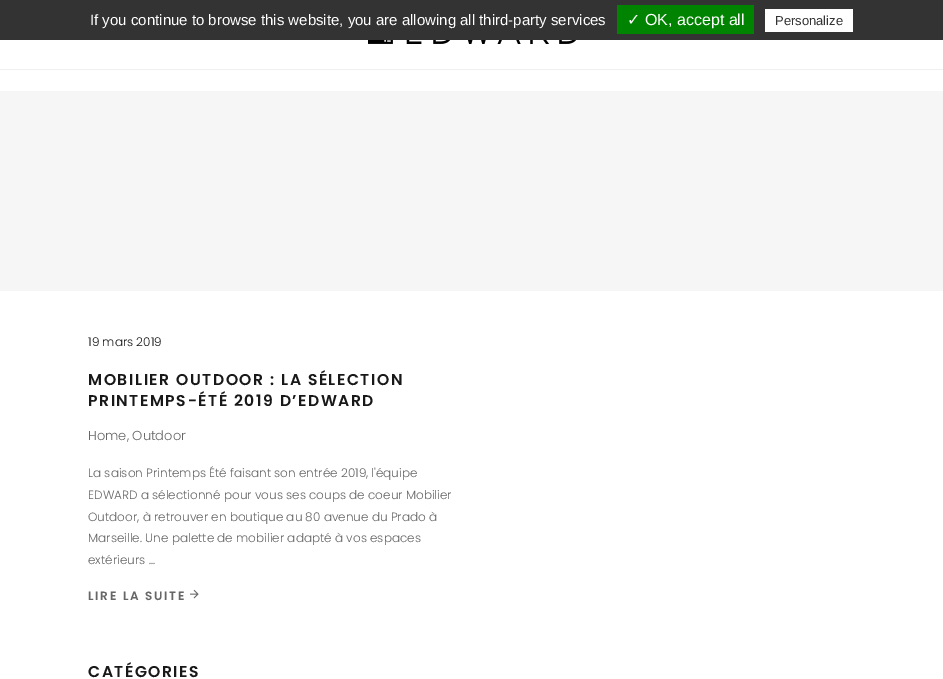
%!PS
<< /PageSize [943 679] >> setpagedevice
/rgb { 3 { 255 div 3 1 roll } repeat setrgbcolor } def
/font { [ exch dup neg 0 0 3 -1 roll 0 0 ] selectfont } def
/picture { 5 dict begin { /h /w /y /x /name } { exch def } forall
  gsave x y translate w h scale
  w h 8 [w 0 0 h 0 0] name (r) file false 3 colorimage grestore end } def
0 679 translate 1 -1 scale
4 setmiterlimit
255 255 255 rgb
0 0 943 679 rectfill
[
  [0 0 943 40 51 51 51]
  [617 5 137 29 0 131 0]
  [765 9 88 23 255 255 255]
  [0 69 943 1 239 239 239]
] { aload pop rgb rectfill } forall
(img/1.rgb) 368 40 208 4 picture
246 246 246 rgb
0 91 943 200 rectfill
(img/2.rgb) 190 589 9 10 picture
/LiberationSans-Regular 15 font
255 255 255 rgb
90 25 moveto (If you continue to browse this website, you are allowing all third-party services) show
/DejaVuSans-Regular 16 font
627 25 moveto (✓) show
/LiberationSans-Regular 16 font
645 25 moveto (OK, accept all) show
/LiberationSans-Regular 13 font
51 51 51 rgb
775 25 moveto (Personalize) show
/Poppins-Light 12 font
24 24 24 rgb
88 346 moveto (19 mars 2019) show
/Poppins-SemiBold 15.6 font
88 385 moveto 1.55 0 (MOBILIER OUTDOOR : LA SÉLECTION) ashow
88 406 moveto 1.55 0 (PRINTEMPS-ÉTÉ 2019 D’EDWARD) ashow
/Poppins-Light 13 font
102 102 102 rgb
88 440 moveto (Home, Outdoor) show
/Poppins-Light 12 font
[
  [(La saison Printemps Été faisant son entrée 2019, l'équipe) 88 477]
  [(EDWARD a sélectionné pour vous ses coups de coeur Mobilier) 88 499]
  [(Outdoor, à retrouver en boutique au 80 avenue du Prado à) 88 521]
  [(Marseille. Une palette de mobilier adapté à vos espaces) 88 542]
  [(extérieurs ...) 88 564]
] { aload pop moveto show } forall
/Poppins-SemiBold 12 font
88 600 moveto 1.75 0 (LIRE LA SUITE) ashow
/Poppins-SemiBold 15.6 font
24 24 24 rgb
88 677 moveto 1.55 0 (CATÉGORIES) ashow
showpage
